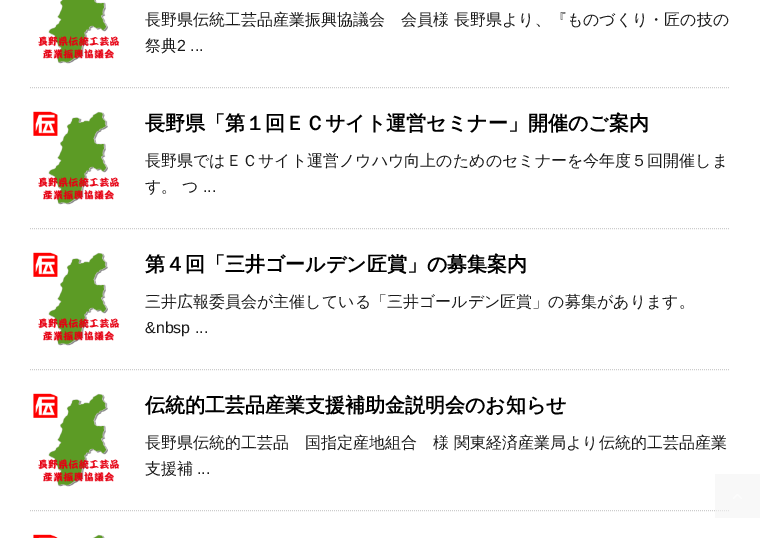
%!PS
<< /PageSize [760 538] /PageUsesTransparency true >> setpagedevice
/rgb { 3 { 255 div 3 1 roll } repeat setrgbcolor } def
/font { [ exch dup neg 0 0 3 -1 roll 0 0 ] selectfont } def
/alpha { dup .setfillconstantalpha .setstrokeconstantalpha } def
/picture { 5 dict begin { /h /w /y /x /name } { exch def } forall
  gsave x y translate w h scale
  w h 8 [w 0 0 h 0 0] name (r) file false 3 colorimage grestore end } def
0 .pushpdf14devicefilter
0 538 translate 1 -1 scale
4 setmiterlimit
255 255 255 rgb
0 0 760 538 rectfill
204 204 204 rgb
[1 1] 0 setdash
30 87.5 moveto 730 87.5 lineto stroke
(img/1.rgb) 38 0 82 64 picture
30 228.5 moveto 730 228.5 lineto stroke
(img/2.rgb) 33 111 87 94 picture
30 369.5 moveto 730 369.5 lineto stroke
(img/2.rgb) 33 252 87 94 picture
30 510.5 moveto 730 510.5 lineto stroke
(img/2.rgb) 33 393 87 94 picture
(img/3.rgb) 33 534 72 4 picture
0.6 alpha
243 243 243 rgb
715 474 45 44 rectfill
1 alpha
(img/4.rgb) 733 494 9 5 picture
/WenQuanYiZenHei-Medium 16 font
26 26 26 rgb
145 25 moveto (長野県伝統工芸品産業振興協議会　会員様 長野県より、『ものづくり・匠の技の) show
145 51 moveto (祭典) show
/LiberationSans-Regular 16 font
177 51 moveto (2 ...) show
/WenQuanYiZenHei-Bold 20 font
0 0 0 rgb
145 130 moveto (長野県「第１回ＥＣサイト運営セミナー」開催のご案内) show
/WenQuanYiZenHei-Medium 16 font
26 26 26 rgb
145 166 moveto (長野県ではＥＣサイト運営ノウハウ向上のためのセミナーを今年度５回開催しま) show
145 192 moveto (す。 つ) show
/LiberationSans-Regular 16 font
203 192 moveto (...) show
/WenQuanYiZenHei-Bold 20 font
0 0 0 rgb
145 271 moveto (第４回「三井ゴールデン匠賞」の募集案内) show
/WenQuanYiZenHei-Medium 16 font
26 26 26 rgb
145 307 moveto (三井広報委員会が主催している「三井ゴールデン匠賞」の募集があります。) show
/LiberationSans-Regular 16 font
145 333 moveto (&nbsp ...) show
/WenQuanYiZenHei-Bold 20 font
0 0 0 rgb
145 412 moveto (伝統的工芸品産業支援補助金説明会のお知らせ) show
/WenQuanYiZenHei-Medium 16 font
26 26 26 rgb
145 448 moveto (長野県伝統的工芸品　国指定産地組合　様 関東経済産業局より伝統的工芸品産業) show
145 474 moveto (支援補) show
/LiberationSans-Regular 16 font
197 474 moveto (...) show
.poppdf14devicefilter showpage
